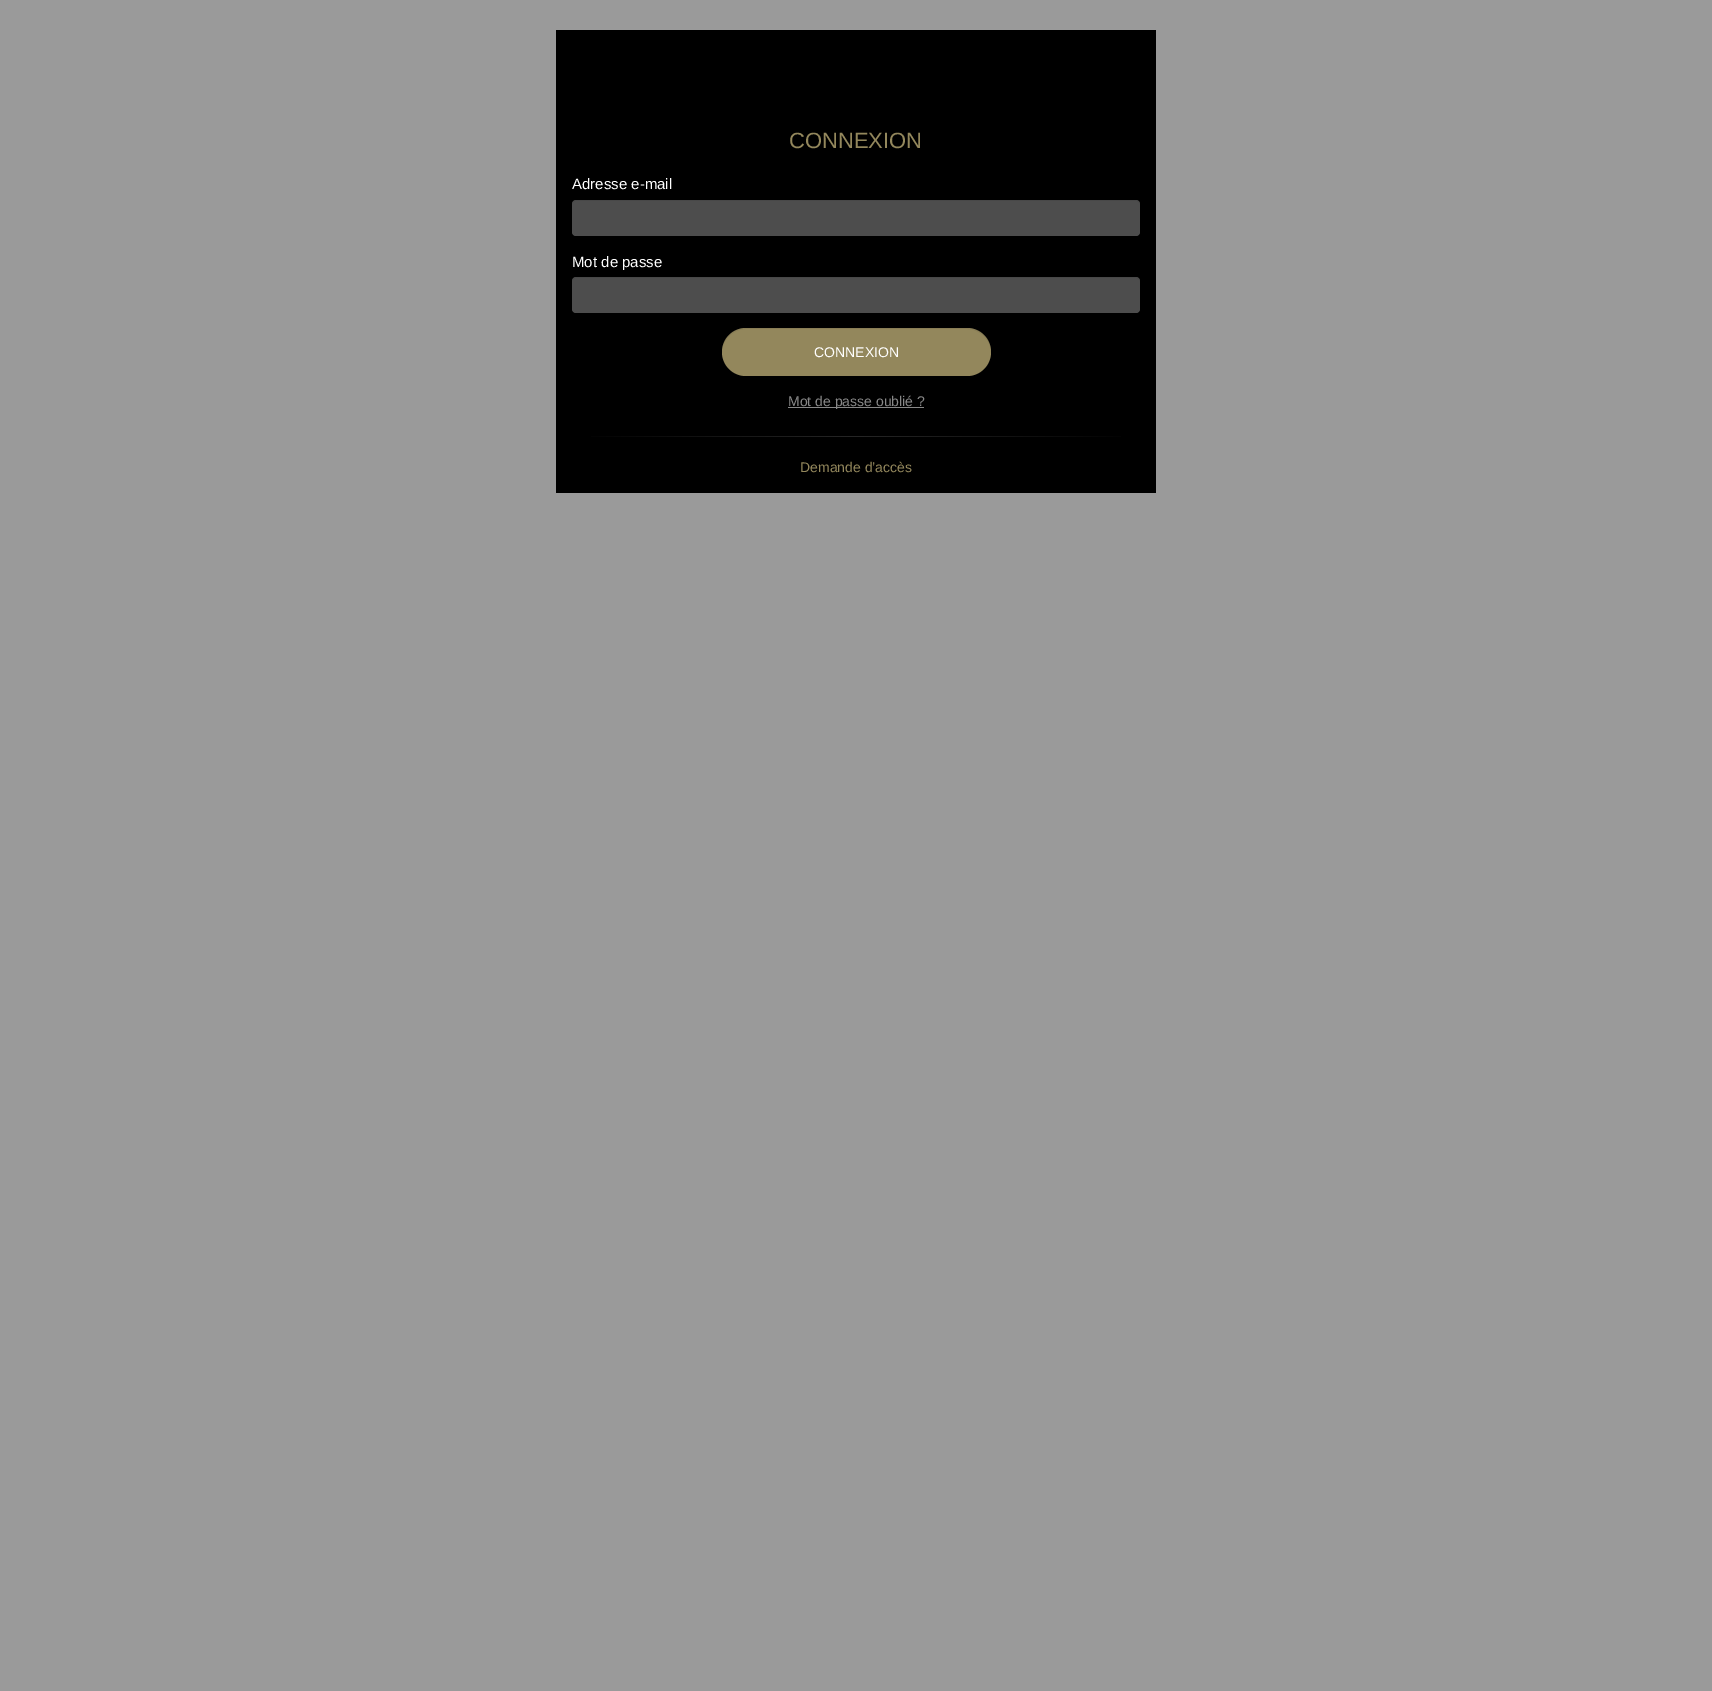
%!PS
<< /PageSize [1712 1691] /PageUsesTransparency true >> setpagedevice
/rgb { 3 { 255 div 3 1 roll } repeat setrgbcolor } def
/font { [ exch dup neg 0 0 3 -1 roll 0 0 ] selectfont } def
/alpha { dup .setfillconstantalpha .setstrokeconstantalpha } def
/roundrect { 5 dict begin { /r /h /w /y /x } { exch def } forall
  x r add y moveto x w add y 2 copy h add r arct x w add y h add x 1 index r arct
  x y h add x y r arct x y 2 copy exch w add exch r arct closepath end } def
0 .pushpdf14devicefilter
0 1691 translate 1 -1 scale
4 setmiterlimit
154 154 154 rgb
0 0 1712 1691 rectfill
0 0 0 rgb
556 30 600 463 rectfill
77 77 77 rgb
572 200 568 36 4 roundrect fill
0.07 alpha
0 0 0 rgb
576 201 moveto 1136 201 lineto 1138 201 1140 203 1140 205 curveto 1140 202 1139 200 1136 200 curveto 576 200 lineto 573 200 572 202 572 205 curveto 572 203 574 201 576 201 curveto closepath fill
1 alpha
77 77 77 rgb
572 277 568 36 4 roundrect fill
0.07 alpha
0 0 0 rgb
576 278 moveto 1136 278 lineto 1138 278 1140 280 1140 282 curveto 1140 279 1139 277 1136 277 curveto 576 277 lineto 573 277 572 279 572 282 curveto 572 280 574 278 576 278 curveto closepath fill
1 alpha
147 135 92 rgb
722 328 269 48 24 roundrect fill
0.07 alpha
0 0 0 rgb
746 329 moveto 967 329 lineto 980 329 991 340 991 353 curveto 991 352 lineto 991 339 980 328 967 328 curveto 746 328 lineto 733 328 722 339 722 352 curveto 722 353 lineto 722 340 733 329 746 329 curveto closepath fill
1 alpha
136 136 136 rgb
788 407 136 1 rectfill
gsave 591 436 moveto 1121 436 lineto 1121 437 lineto 591 437 lineto closepath clip newpath
<< /ShadingType 2 /ColorSpace /DeviceRGB /Coords [572 437 1140 437] /Extend [true true] /Function << /FunctionType 3 /Domain [0 1] /Functions [<< /FunctionType 2 /Domain [0 1] /C0 [0 0 0] /C1 [0.149 0.149 0.149] /N 1 >> << /FunctionType 2 /Domain [0 1] /C0 [0.149 0.149 0.149] /C1 [0 0 0] /N 1 >>] /Bounds [0.5] /Encode [0 1 0 1] >> >> shfill grestore
/LiberationSans-Regular 22 font
147 135 92 rgb
789 148 moveto (CONNEXION) show
/LiberationSans-Regular 15 font
255 255 255 rgb
572 189 moveto (Adresse e-mail) show
572 267 moveto (Mot de passe) show
/LiberationSans-Regular 14 font
814 357 moveto (CONNEXION) show
136 136 136 rgb
788 406 moveto (Mot de passe oublié ?) show
147 135 92 rgb
800 472 moveto (Demande d’accès) show
.poppdf14devicefilter showpage
